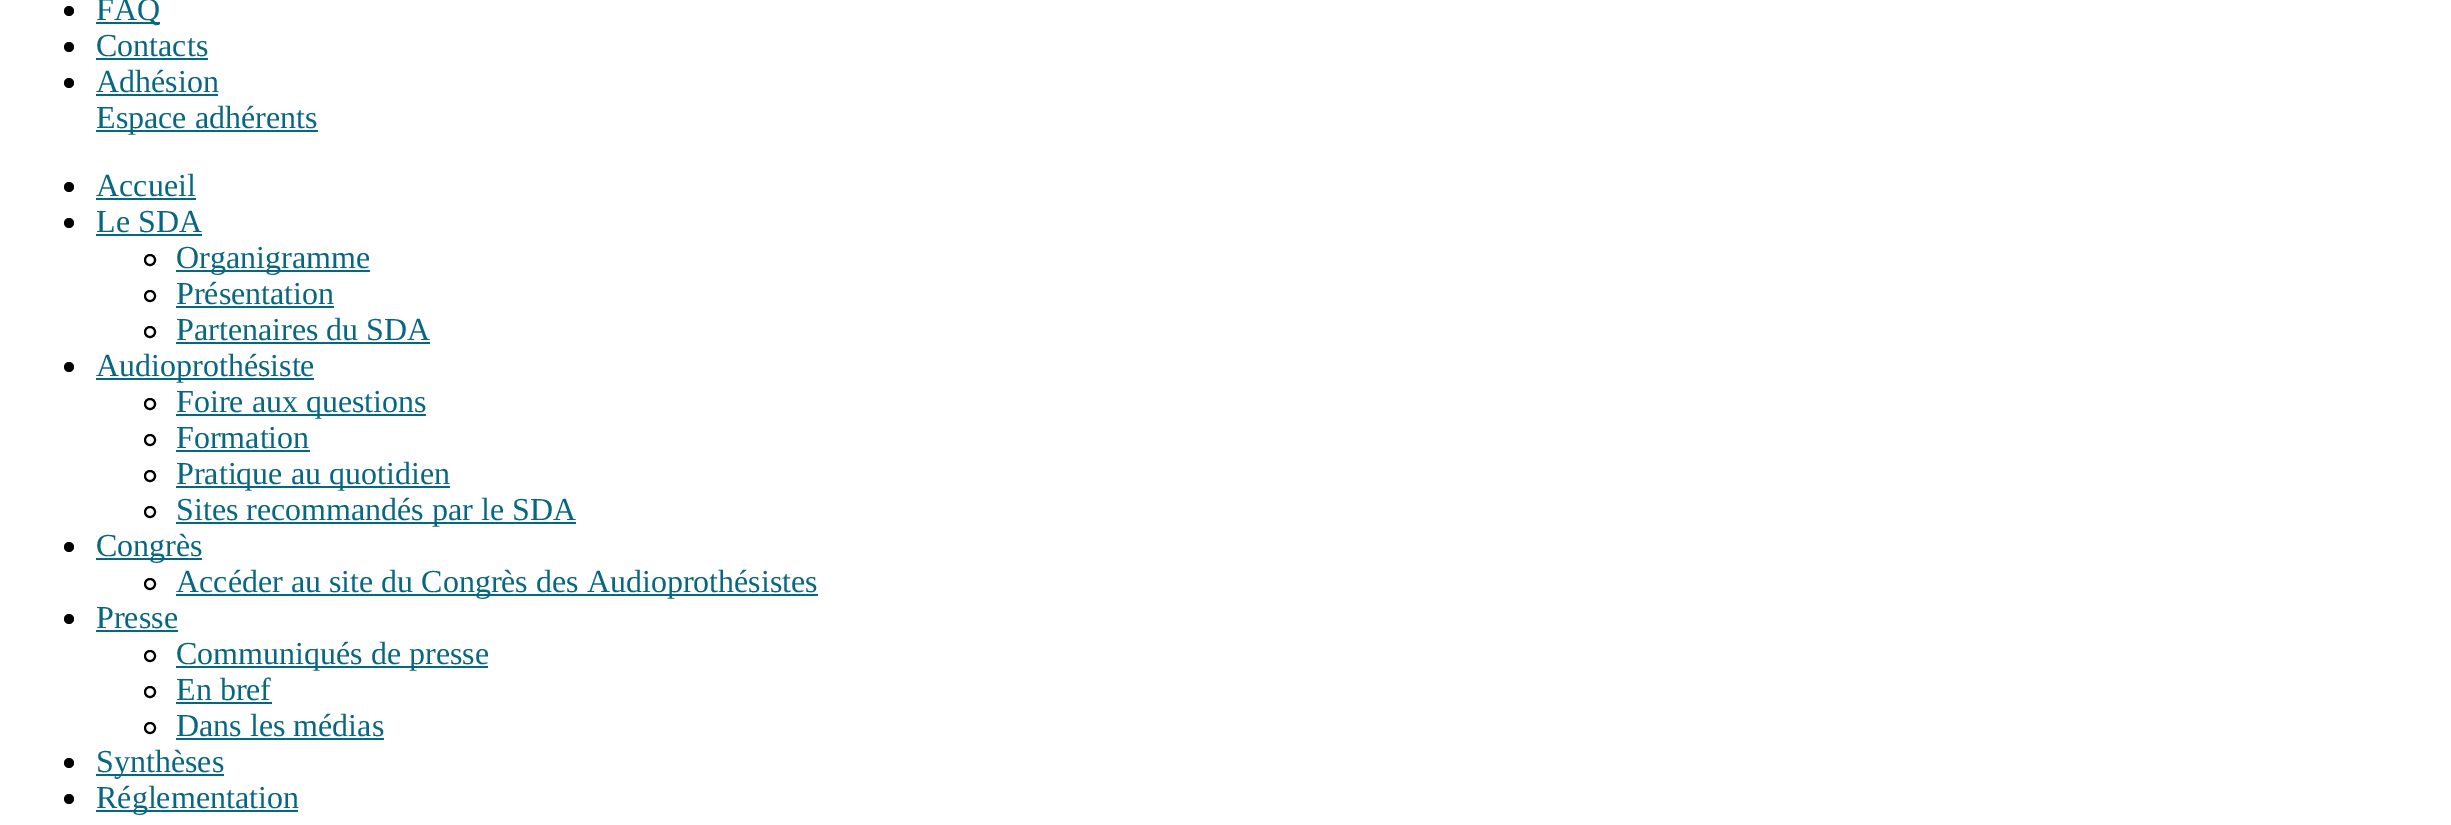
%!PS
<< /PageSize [2451 825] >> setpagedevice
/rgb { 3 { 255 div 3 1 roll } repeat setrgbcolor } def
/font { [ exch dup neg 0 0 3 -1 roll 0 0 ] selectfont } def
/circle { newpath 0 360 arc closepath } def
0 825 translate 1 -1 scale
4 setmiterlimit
255 255 255 rgb
0 0 2451 825 rectfill
0 0 0 rgb
69 11 5 circle fill
6 103 131 rgb
96 22 64 2 rectfill
0 0 0 rgb
69 47 5 circle fill
6 103 131 rgb
96 58 112 2 rectfill
0 0 0 rgb
69 83 5 circle fill
6 103 131 rgb
96 94 122 2 rectfill
96 130 222 2 rectfill
0 0 0 rgb
69 187 5 circle fill
6 103 131 rgb
96 198 100 2 rectfill
0 0 0 rgb
69 223 5 circle fill
6 103 131 rgb
96 234 106 2 rectfill
0 0 0 rgb
2 setlinewidth
150 260 5 circle stroke
6 103 131 rgb
176 270 194 2 rectfill
0 0 0 rgb
150 296 5 circle stroke
6 103 131 rgb
176 306 158 2 rectfill
0 0 0 rgb
150 332 5 circle stroke
6 103 131 rgb
176 342 254 2 rectfill
0 0 0 rgb
69 367 5 circle fill
6 103 131 rgb
96 378 218 2 rectfill
0 0 0 rgb
150 404 5 circle stroke
6 103 131 rgb
176 414 250 2 rectfill
0 0 0 rgb
150 440 5 circle stroke
6 103 131 rgb
176 450 134 2 rectfill
0 0 0 rgb
150 476 5 circle stroke
6 103 131 rgb
176 486 274 2 rectfill
0 0 0 rgb
150 512 5 circle stroke
6 103 131 rgb
176 522 400 2 rectfill
0 0 0 rgb
69 547 5 circle fill
6 103 131 rgb
96 558 106 2 rectfill
0 0 0 rgb
150 584 5 circle stroke
6 103 131 rgb
176 594 642 2 rectfill
0 0 0 rgb
69 619 5 circle fill
6 103 131 rgb
96 630 82 2 rectfill
0 0 0 rgb
150 656 5 circle stroke
6 103 131 rgb
176 666 312 2 rectfill
0 0 0 rgb
150 692 5 circle stroke
6 103 131 rgb
176 702 96 2 rectfill
0 0 0 rgb
150 728 5 circle stroke
6 103 131 rgb
176 738 208 2 rectfill
0 0 0 rgb
69 763 5 circle fill
6 103 131 rgb
96 774 128 2 rectfill
0 0 0 rgb
69 799 5 circle fill
6 103 131 rgb
96 810 202 2 rectfill
/LiberationSerif-Regular 32 font
[
  [(FAQ) 96 20]
  [(Contacts) 96 56]
  [(Adhésion) 96 92]
  [(Espace adhérents) 96 128]
  [(Accueil) 96 196]
  [(Le SDA) 96 232]
  [(Organigramme) 176 268]
  [(Présentation) 176 304]
  [(Partenaires du SDA) 176 340]
  [(Audioprothésiste) 96 376]
  [(Foire aux questions) 176 412]
  [(Formation) 176 448]
  [(Pratique au quotidien) 176 484]
  [(Sites recommandés par le SDA) 176 520]
  [(Congrès) 96 556]
  [(Accéder au site du Congrès des Audioprothésistes) 176 592]
  [(Presse) 96 628]
  [(Communiqués de presse) 176 664]
  [(En bref) 176 700]
  [(Dans les médias) 176 736]
  [(Synthèses) 96 772]
  [(Réglementation) 96 808]
] { aload pop moveto show } forall
showpage
